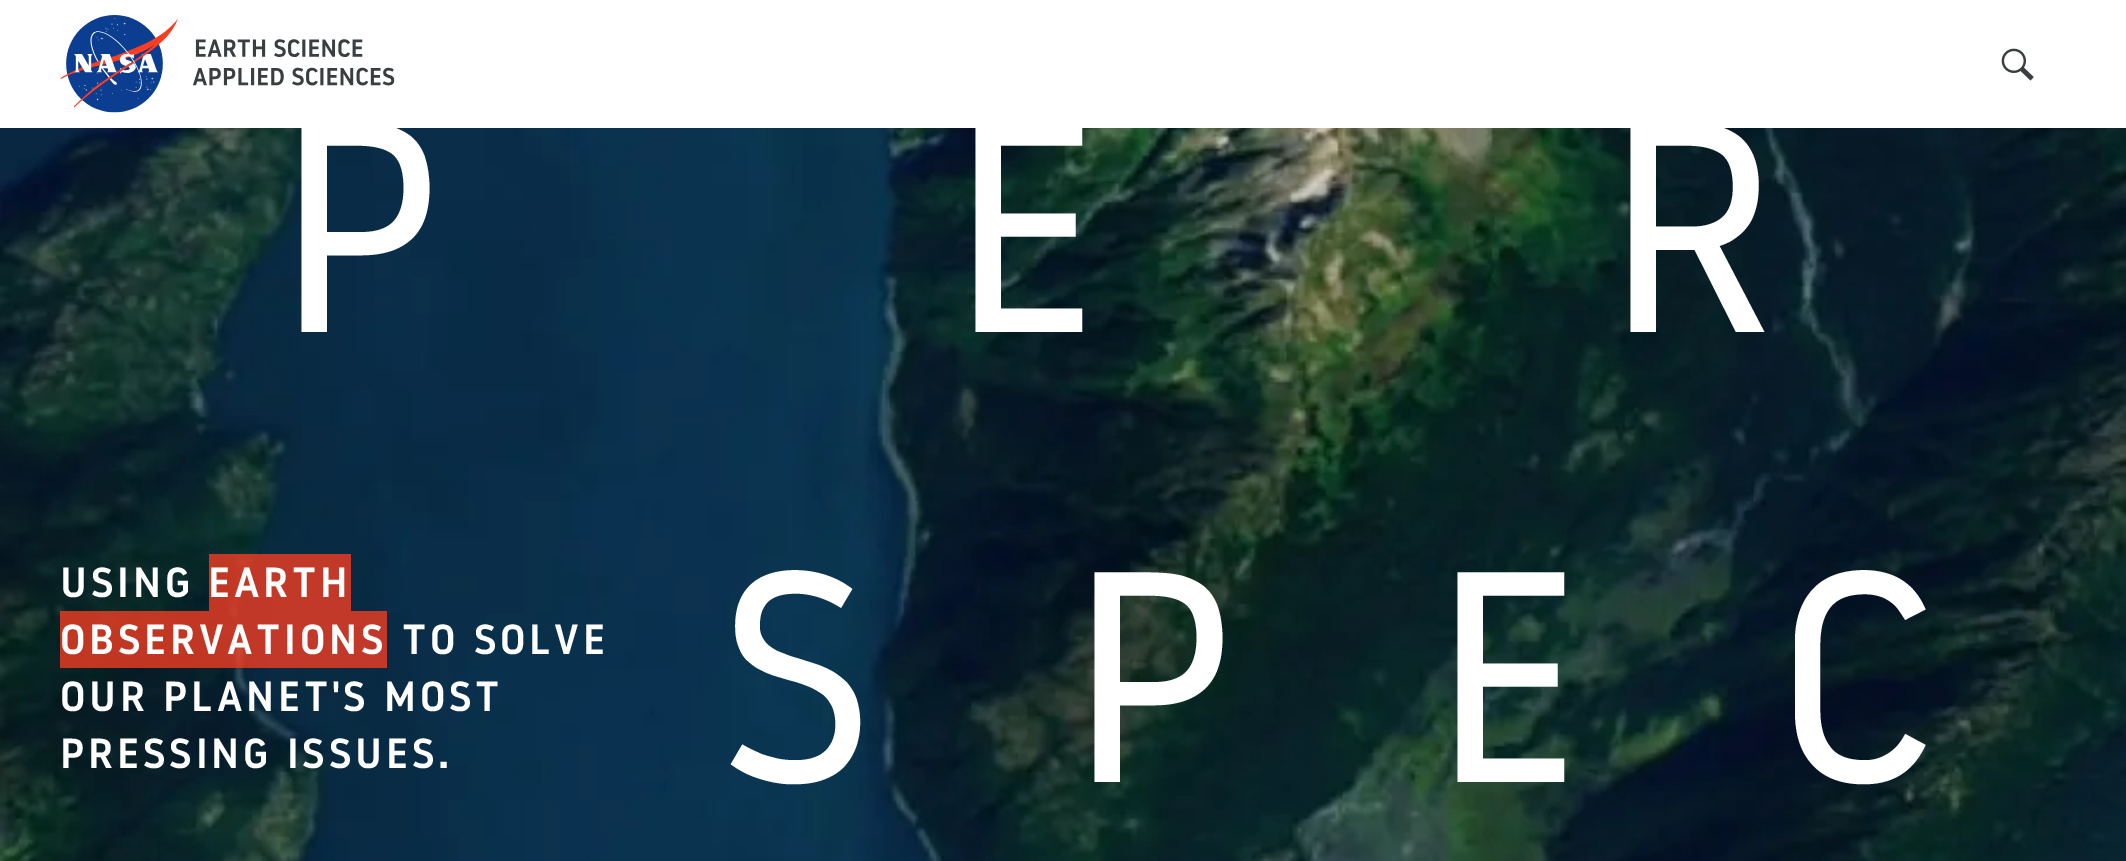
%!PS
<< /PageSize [2126 861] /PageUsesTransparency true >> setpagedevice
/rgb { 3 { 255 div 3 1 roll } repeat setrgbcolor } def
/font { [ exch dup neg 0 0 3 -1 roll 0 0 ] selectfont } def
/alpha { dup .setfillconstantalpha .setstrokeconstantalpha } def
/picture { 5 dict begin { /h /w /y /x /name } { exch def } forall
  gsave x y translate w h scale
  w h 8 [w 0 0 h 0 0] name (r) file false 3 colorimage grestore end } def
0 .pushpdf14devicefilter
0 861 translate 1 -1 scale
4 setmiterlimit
255 255 255 rgb
0 0 2126 861 rectfill
(img/1.rgb) 60 15 335 98 picture
(img/2.rgb) 2001 48 33 33 picture
(img/3.rgb) 0 128 2126 733 picture
0.76 alpha
252 61 33 rgb
209 554 142 57 rectfill
60 611 327 57 rectfill
/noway-Regular 300 font
1 alpha
255 255 255 rgb
273 332 moveto 75 0 (P) ashow
947 332 moveto 75 0 (E) ashow
1602 332 moveto 75 0 (R) ashow
/noway-Medium 42 font
60 597 moveto 3.75 0 (USING) ashow
208 597 moveto 3.75 0 (EARTH) ashow
60 654 moveto 3.75 0 (OBSERVATIONS TO SOLVE) ashow
60 711 moveto 3.75 0 (OUR PLANET'S MOST) ashow
60 768 moveto 3.75 0 (PRESSING ISSUES.) ashow
/noway-Regular 300 font
718 782 moveto 75 0 (S) ashow
1066 782 moveto 75 0 (P) ashow
1429 782 moveto 75 0 (E) ashow
1774 782 moveto 75 0 (C) ashow
.poppdf14devicefilter showpage
